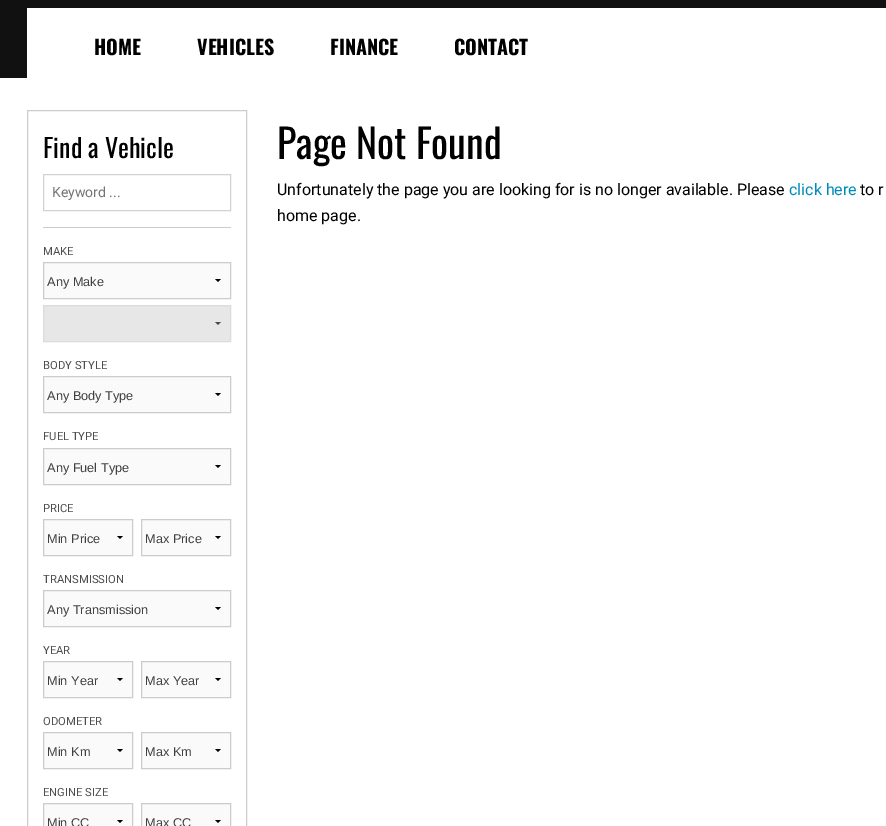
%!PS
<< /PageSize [886 826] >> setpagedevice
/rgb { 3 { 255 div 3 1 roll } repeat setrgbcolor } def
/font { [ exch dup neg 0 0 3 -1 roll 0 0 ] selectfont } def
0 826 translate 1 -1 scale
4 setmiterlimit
17 17 17 rgb
0 0 886 826 rectfill
255 255 255 rgb
27 8 859 70 rectfill
0 78 886 748 rectfill
204 204 204 rgb
27.5 110.5 219 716 rectstroke
210 210 210 rgb
43.5 174.5 187 36 rectstroke
204 204 204 rgb
43 227 188 1 rectfill
250 250 250 rgb
44 263 186 35 rectfill
0 0 0 rgb
221 279 moveto 218 282 lineto 215 279 lineto closepath fill
204 204 204 rgb
43.5 262.5 187 36 rectstroke
231 231 231 rgb
44 306 186 35 rectfill
77 77 77 rgb
221 322 moveto 218 325 lineto 215 322 lineto closepath fill
219 219 219 rgb
43.5 305.5 187 36 rectstroke
250 250 250 rgb
44 377 186 35 rectfill
0 0 0 rgb
221 393 moveto 218 396 lineto 215 393 lineto closepath fill
204 204 204 rgb
43.5 376.5 187 36 rectstroke
250 250 250 rgb
44 449 186 35 rectfill
0 0 0 rgb
221 465 moveto 218 468 lineto 215 465 lineto closepath fill
204 204 204 rgb
43.5 448.5 187 36 rectstroke
250 250 250 rgb
44 520 88 35 rectfill
0 0 0 rgb
123 536 moveto 120 539 lineto 117 536 lineto closepath fill
204 204 204 rgb
43.5 519.5 89 36 rectstroke
250 250 250 rgb
142 520 88 35 rectfill
0 0 0 rgb
221 536 moveto 218 539 lineto 215 536 lineto closepath fill
204 204 204 rgb
141.5 519.5 89 36 rectstroke
250 250 250 rgb
44 591 186 35 rectfill
0 0 0 rgb
221 607 moveto 218 610 lineto 215 607 lineto closepath fill
204 204 204 rgb
43.5 590.5 187 36 rectstroke
250 250 250 rgb
44 662 88 35 rectfill
0 0 0 rgb
123 678 moveto 120 681 lineto 117 678 lineto closepath fill
204 204 204 rgb
43.5 661.5 89 36 rectstroke
250 250 250 rgb
142 662 88 35 rectfill
0 0 0 rgb
221 678 moveto 218 681 lineto 215 678 lineto closepath fill
204 204 204 rgb
141.5 661.5 89 36 rectstroke
250 250 250 rgb
44 733 88 35 rectfill
0 0 0 rgb
123 749 moveto 120 752 lineto 117 749 lineto closepath fill
204 204 204 rgb
43.5 732.5 89 36 rectstroke
250 250 250 rgb
142 733 88 35 rectfill
0 0 0 rgb
221 749 moveto 218 752 lineto 215 749 lineto closepath fill
204 204 204 rgb
141.5 732.5 89 36 rectstroke
250 250 250 rgb
44 804 88 22 rectfill
0 0 0 rgb
123 820 moveto 120 823 lineto 117 820 lineto closepath fill
204 204 204 rgb
43.5 803.5 89 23 rectstroke
250 250 250 rgb
142 804 88 22 rectfill
0 0 0 rgb
221 820 moveto 218 823 lineto 215 820 lineto closepath fill
204 204 204 rgb
141.5 803.5 89 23 rectstroke
/Oswald-Bold 20 font
0 0 0 rgb
[
  [(HOME) 94 55]
  [(VEHICLES) 197 55]
  [(FINANCE) 330 55]
  [(CONTACT) 454 55]
] { aload pop moveto show } forall
/Oswald-Regular 26 font
43 158 moveto (Find a Vehicle) show
/Roboto-Regular 14 font
117 117 117 rgb
52 197 moveto (Keyword ...) show
/Roboto-Regular 11.25 font
77 77 77 rgb
43 255 moveto (MAKE) show
/LiberationSans-Regular 12.75 font
63 63 63 rgb
47 286 moveto (Any Make) show
/Roboto-Regular 11.25 font
77 77 77 rgb
43 369 moveto (BODY STYLE) show
/LiberationSans-Regular 12.75 font
63 63 63 rgb
47 400 moveto (Any Body Type) show
/Roboto-Regular 11.25 font
77 77 77 rgb
43 440 moveto (FUEL TYPE) show
/LiberationSans-Regular 12.75 font
63 63 63 rgb
47 472 moveto (Any Fuel Type) show
/Roboto-Regular 11.25 font
77 77 77 rgb
43 512 moveto (PRICE) show
/LiberationSans-Regular 12.75 font
63 63 63 rgb
47 543 moveto (Min Price) show
145 543 moveto (Max Price) show
/Roboto-Regular 11.25 font
77 77 77 rgb
43 583 moveto (TRANSMISSION) show
/LiberationSans-Regular 12.75 font
63 63 63 rgb
47 614 moveto (Any Transmission) show
/Roboto-Regular 11.25 font
77 77 77 rgb
43 654 moveto (YEAR) show
/LiberationSans-Regular 12.75 font
63 63 63 rgb
47 685 moveto (Min Year) show
145 685 moveto (Max Year) show
/Roboto-Regular 11.25 font
77 77 77 rgb
43 725 moveto (ODOMETER) show
/LiberationSans-Regular 12.75 font
63 63 63 rgb
47 756 moveto (Min Km) show
145 756 moveto (Max Km) show
/Roboto-Regular 11.25 font
77 77 77 rgb
43 796 moveto (ENGINE SIZE) show
/LiberationSans-Regular 12.75 font
63 63 63 rgb
47 827 moveto (Min CC) show
145 827 moveto (Max CC) show
/Oswald-Regular 40 font
0 0 0 rgb
277 159 moveto (Page Not Found) show
/Roboto-Regular 16 font
277 195 moveto (Unfortunately the page you are looking for is no longer available. Please) show
0 140 186 rgb
789 195 moveto (click here) show
0 0 0 rgb
860 195 moveto (to r) show
277 221 moveto (home page.) show
showpage
